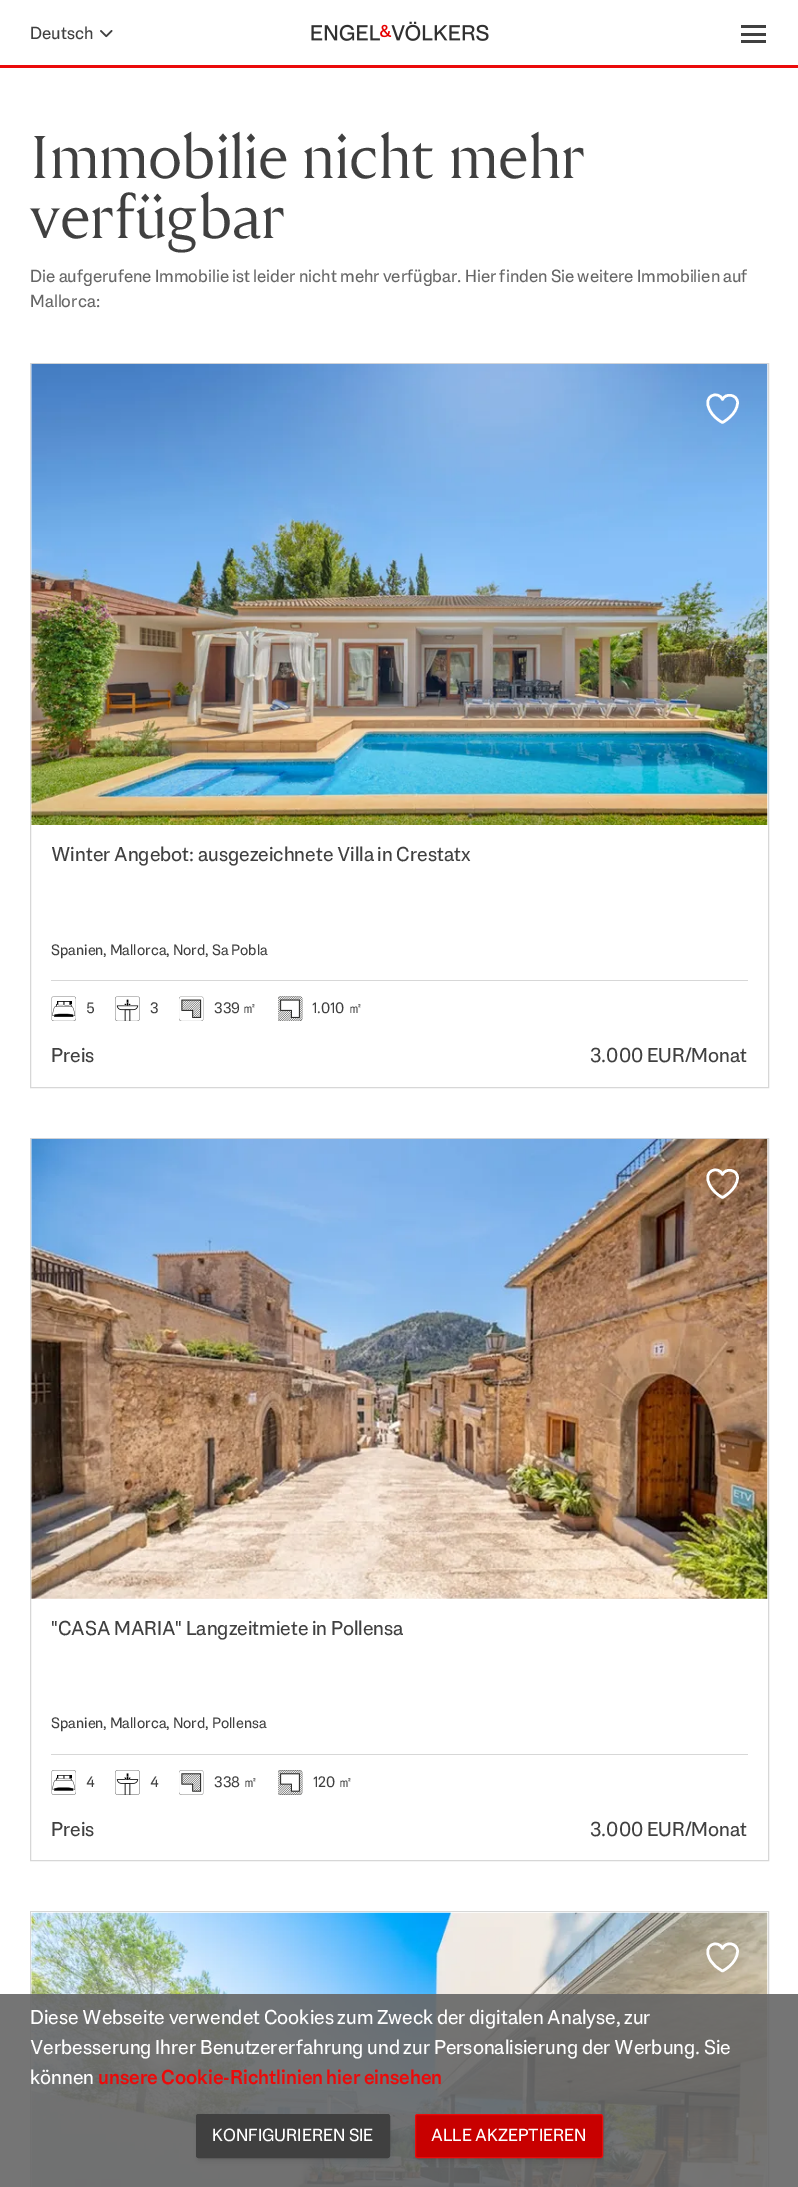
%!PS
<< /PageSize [798 2187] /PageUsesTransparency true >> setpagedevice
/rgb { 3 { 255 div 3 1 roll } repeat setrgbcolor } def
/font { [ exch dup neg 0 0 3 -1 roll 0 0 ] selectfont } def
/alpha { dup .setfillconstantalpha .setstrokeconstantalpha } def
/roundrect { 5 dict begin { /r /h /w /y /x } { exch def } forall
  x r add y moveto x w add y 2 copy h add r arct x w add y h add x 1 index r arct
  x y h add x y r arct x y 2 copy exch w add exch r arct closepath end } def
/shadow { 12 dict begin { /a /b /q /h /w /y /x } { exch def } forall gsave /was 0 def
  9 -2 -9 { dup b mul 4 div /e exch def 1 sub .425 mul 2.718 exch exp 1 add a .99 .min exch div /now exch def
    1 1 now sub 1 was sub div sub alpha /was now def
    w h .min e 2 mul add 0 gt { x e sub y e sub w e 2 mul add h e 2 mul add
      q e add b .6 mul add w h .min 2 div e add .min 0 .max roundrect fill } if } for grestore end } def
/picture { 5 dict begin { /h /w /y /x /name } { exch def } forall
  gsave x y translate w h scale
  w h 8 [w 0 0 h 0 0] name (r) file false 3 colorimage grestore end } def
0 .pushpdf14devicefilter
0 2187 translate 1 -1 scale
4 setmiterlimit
255 255 255 rgb
0 0 798 2187 rectfill
235 10 10 rgb
0 65 798 3 rectfill
(img/1.rgb) 100 30 13 8 picture
(img/2.rgb) 311 21 178 20 picture
[
  [741 25 25 3 64 64 64]
  [741 33 25 3 64 64 64]
  [741 40 25 3 64 64 64]
] { aload pop rgb rectfill } forall
215 215 215 rgb
30.5 363.5 738 724 rectstroke
(img/3.rgb) 31 363 737 462 picture
255 255 255 rgb
2.5 setlinewidth
1 setlinecap
1 setlinejoin
737.5 402.5 moveto 737.5 394.5 725.5 392.5 722.5 399.5 curveto 718.5 390 701.5 395.5 710 410.5 curveto 712.5 415.5 717.5 420 722.5 422.5 curveto 722.5 422.5 737.5 414.5 737.5 402.5 curveto closepath stroke
215 215 215 rgb
51 980 697 1 rectfill
(img/4.rgb) 51 996 25 25 picture
(img/5.rgb) 115 996 25 25 picture
(img/6.rgb) 179 996 25 25 picture
(img/7.rgb) 278 996 25 25 picture
1 setlinewidth
0 setlinecap
0 setlinejoin
30.5 1138.5 738 722 rectstroke
(img/8.rgb) 31 1138 737 461 picture
255 255 255 rgb
2.5 setlinewidth
1 setlinecap
1 setlinejoin
737.5 1177.5 moveto 737.5 1169.5 725.5 1167.5 722.5 1174.5 curveto 718.5 1165 701.5 1170.5 710 1185.5 curveto 712.5 1190.5 717.5 1195 722.5 1197.5 curveto 722.5 1197.5 737.5 1189.5 737.5 1177.5 curveto closepath stroke
215 215 215 rgb
51 1754 697 1 rectfill
(img/9.rgb) 51 1770 25 25 picture
(img/10.rgb) 115 1770 25 25 picture
(img/11.rgb) 179 1770 25 25 picture
(img/12.rgb) 278 1770 25 25 picture
1 setlinewidth
0 setlinecap
0 setlinejoin
30.5 1911.5 738 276 rectstroke
(img/13.rgb) 31 1912 737 275 picture
255 255 255 rgb
2.5 setlinewidth
1 setlinecap
1 setlinejoin
737.5 1951 moveto 737.5 1943 725.5 1941 722.5 1948.5 curveto 718.5 1939 701.5 1944.5 710 1959.5 curveto 712.5 1964.5 717.5 1968.5 722.5 1971 curveto 722.5 1971 737.5 1963.5 737.5 1951 curveto closepath stroke
0.9 alpha
102 102 102 rgb
0 1994 798 193 rectfill
1 alpha
0 0 0 rgb
199 2119 189 39 0 2.5 0.1 shadow
198 2120 191 41 1 4 0.1 shadow
64 64 64 rgb
196.5 2114.5 193 43 2 roundrect gsave fill grestore
1 setlinewidth
0 setlinecap
0 setlinejoin
stroke
0 0 0 rgb
418 2119 182 39 0 2.5 0.1 shadow
416 2120 185 41 1 4 0.1 shadow
200 0 0 rgb
415.5 2114.5 187 43 2 roundrect gsave fill grestore
235 10 10 rgb
stroke
/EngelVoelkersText-Regular 17.5 font
64 64 64 rgb
30 39 moveto (Deutsch) show
/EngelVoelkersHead-Regular 60 font
30 178 moveto (Immobilie nicht mehr) show
30 238 moveto (verfügbar) show
/EngelVoelkersText-Regular 17.5 font
102 102 102 rgb
30 282 moveto (Die aufgerufene Immobilie ist leider nicht mehr verfügbar. Hier finden Sie weitere Immobilien auf) show
30 307 moveto (Mallorca:) show
/EngelVoelkersText-Regular 20 font
64 64 64 rgb
51 861 moveto (Winter Angebot: ausgezeichnete Villa in Crestatx) show
/EngelVoelkersText-Regular 15 font
[
  [(Spanien, Mallorca, Nord, Sa Pobla) 51 955]
  [(5) 86 1013]
  [(3) 150 1013]
  [(339) 214 1013]
] { aload pop moveto show } forall
/WenQuanYiZenHei-Medium 15 font
242 1013 moveto (㎡) show
/EngelVoelkersText-Regular 15 font
312 1013 moveto (1.010) show
/WenQuanYiZenHei-Medium 15 font
348 1013 moveto (㎡) show
/EngelVoelkersText-Regular 20 font
[
  [(Preis) 51 1062]
  [(3.000 EUR/Monat) 590 1062]
  [("CASA MARIA" Langzeitmiete in Pollensa) 51 1635]
] { aload pop moveto show } forall
/EngelVoelkersText-Regular 15 font
[
  [(Spanien, Mallorca, Nord, Pollensa) 51 1728]
  [(4) 86 1787]
  [(4) 150 1787]
  [(338) 214 1787]
] { aload pop moveto show } forall
/WenQuanYiZenHei-Medium 15 font
243 1787 moveto (㎡) show
/EngelVoelkersText-Regular 15 font
313 1787 moveto (120) show
/WenQuanYiZenHei-Medium 15 font
338 1787 moveto (㎡) show
/EngelVoelkersText-Regular 20 font
51 1836 moveto (Preis) show
590 1836 moveto (3.000 EUR/Monat) show
255 255 255 rgb
[
  [(Diese Webseite verwendet Cookies zum Zweck der digitalen Analyse, zur) 30 2024]
  [(Verbesserung Ihrer Benutzererfahrung und zur Personalisierung der Werbung. Sie) 30 2054]
  [(können) 30 2084]
] { aload pop moveto show } forall
/EngelVoelkersText-Bold 20 font
235 10 10 rgb
98 2084 moveto (unsere Cookie-Richtlinien hier einsehen) show
/EngelVoelkersText-Regular 17.5 font
255 255 255 rgb
212 2141 moveto (KONFIGURIEREN SIE) show
431 2141 moveto (ALLE AKZEPTIEREN) show
.poppdf14devicefilter showpage
